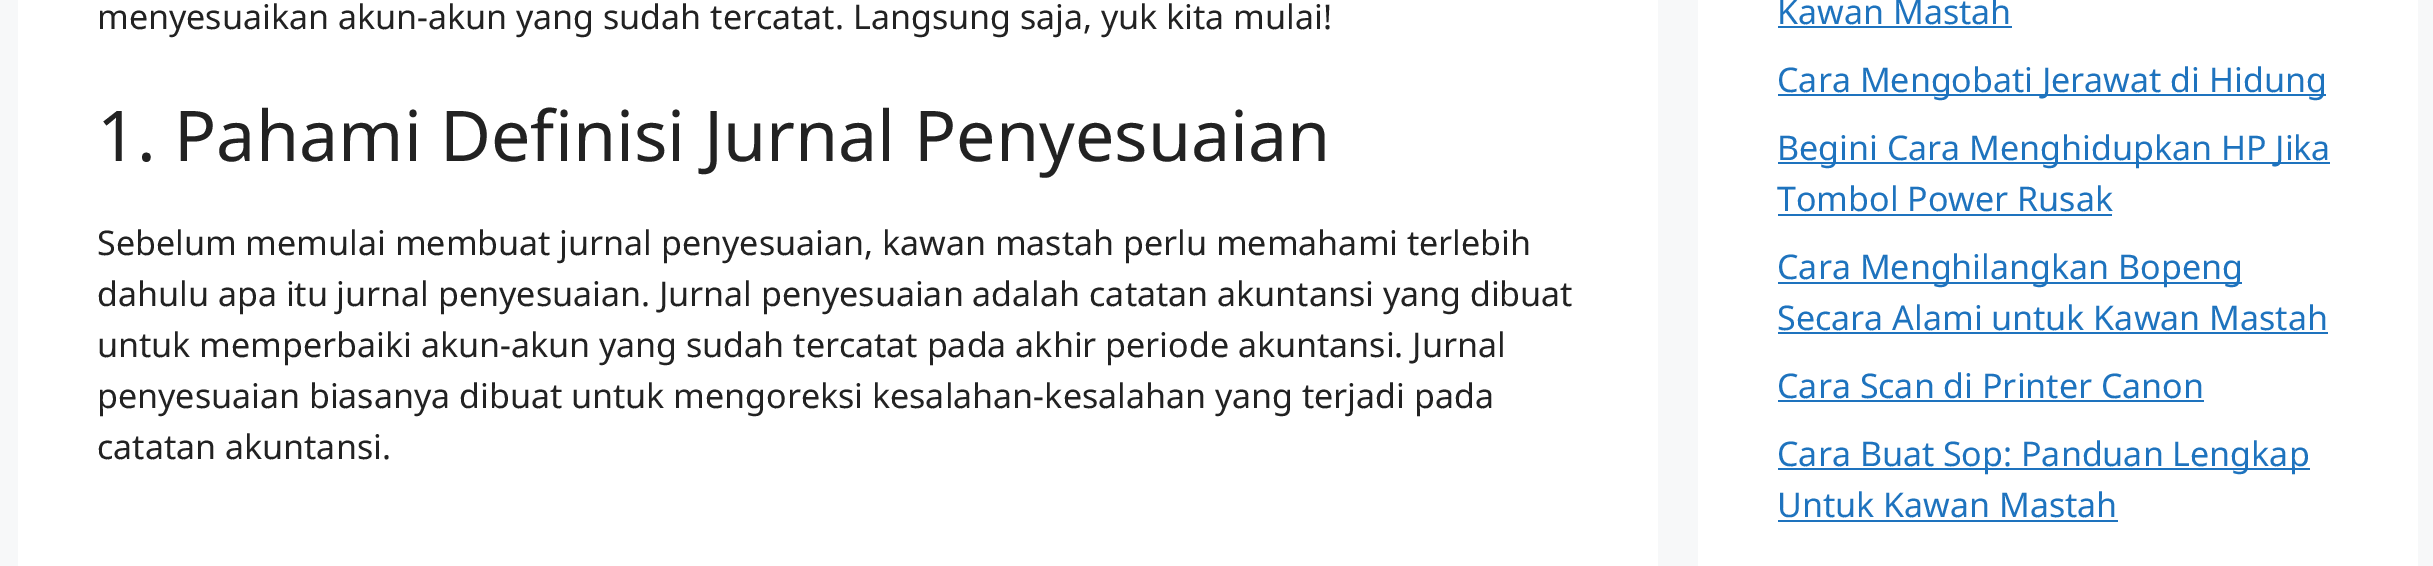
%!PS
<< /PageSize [2433 566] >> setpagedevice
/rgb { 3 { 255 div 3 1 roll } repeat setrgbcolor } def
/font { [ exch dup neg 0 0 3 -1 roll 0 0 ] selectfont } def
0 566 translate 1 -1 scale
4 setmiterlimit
247 248 249 rgb
0 0 2433 566 rectfill
[
  [18 0 1640 566 255 255 255]
  [1698 0 720 566 255 255 255]
  [1778 26 234 2 30 115 190]
  [1778 94 548 2 30 115 190]
  [1778 162 552 2 30 115 190]
  [1778 214 334 2 30 115 190]
  [1778 282 464 2 30 115 190]
  [1778 332 550 2 30 115 190]
  [1778 400 426 2 30 115 190]
  [1778 468 532 2 30 115 190]
  [1778 520 340 2 30 115 190]
] { aload pop rgb rectfill } forall
/NotoSans-Regular 34 font
34 34 34 rgb
97 29 moveto (menyesuaikan akun-akun yang sudah tercatat. Langsung saja, yuk kita mulai!) show
/NotoSans-Regular 70 font
97 161 moveto (1. Pahami Definisi Jurnal Penyesuaian) show
/NotoSans-Regular 34 font
[
  [(Sebelum memulai membuat jurnal penyesuaian, kawan mastah perlu memahami terlebih) 97 255]
  [(dahulu apa itu jurnal penyesuaian. Jurnal penyesuaian adalah catatan akuntansi yang dibuat) 97 306]
  [(untuk memperbaiki akun-akun yang sudah tercatat pada akhir periode akuntansi. Jurnal) 97 357]
  [(penyesuaian biasanya dibuat untuk mengoreksi kesalahan-kesalahan yang terjadi pada) 97 408]
  [(catatan akuntansi.) 97 459]
] { aload pop moveto show } forall
30 115 190 rgb
[
  [(Kawan Mastah) 1777 24]
  [(Cara Mengobati Jerawat di Hidung) 1777 92]
  [(Begini Cara Menghidupkan HP Jika) 1777 160]
  [(Tombol Power Rusak) 1777 211]
  [(Cara Menghilangkan Bopeng) 1777 279]
  [(Secara Alami untuk Kawan Mastah) 1777 330]
  [(Cara Scan di Printer Canon) 1777 398]
  [(Cara Buat Sop: Panduan Lengkap) 1777 466]
  [(Untuk Kawan Mastah) 1777 517]
] { aload pop moveto show } forall
showpage
